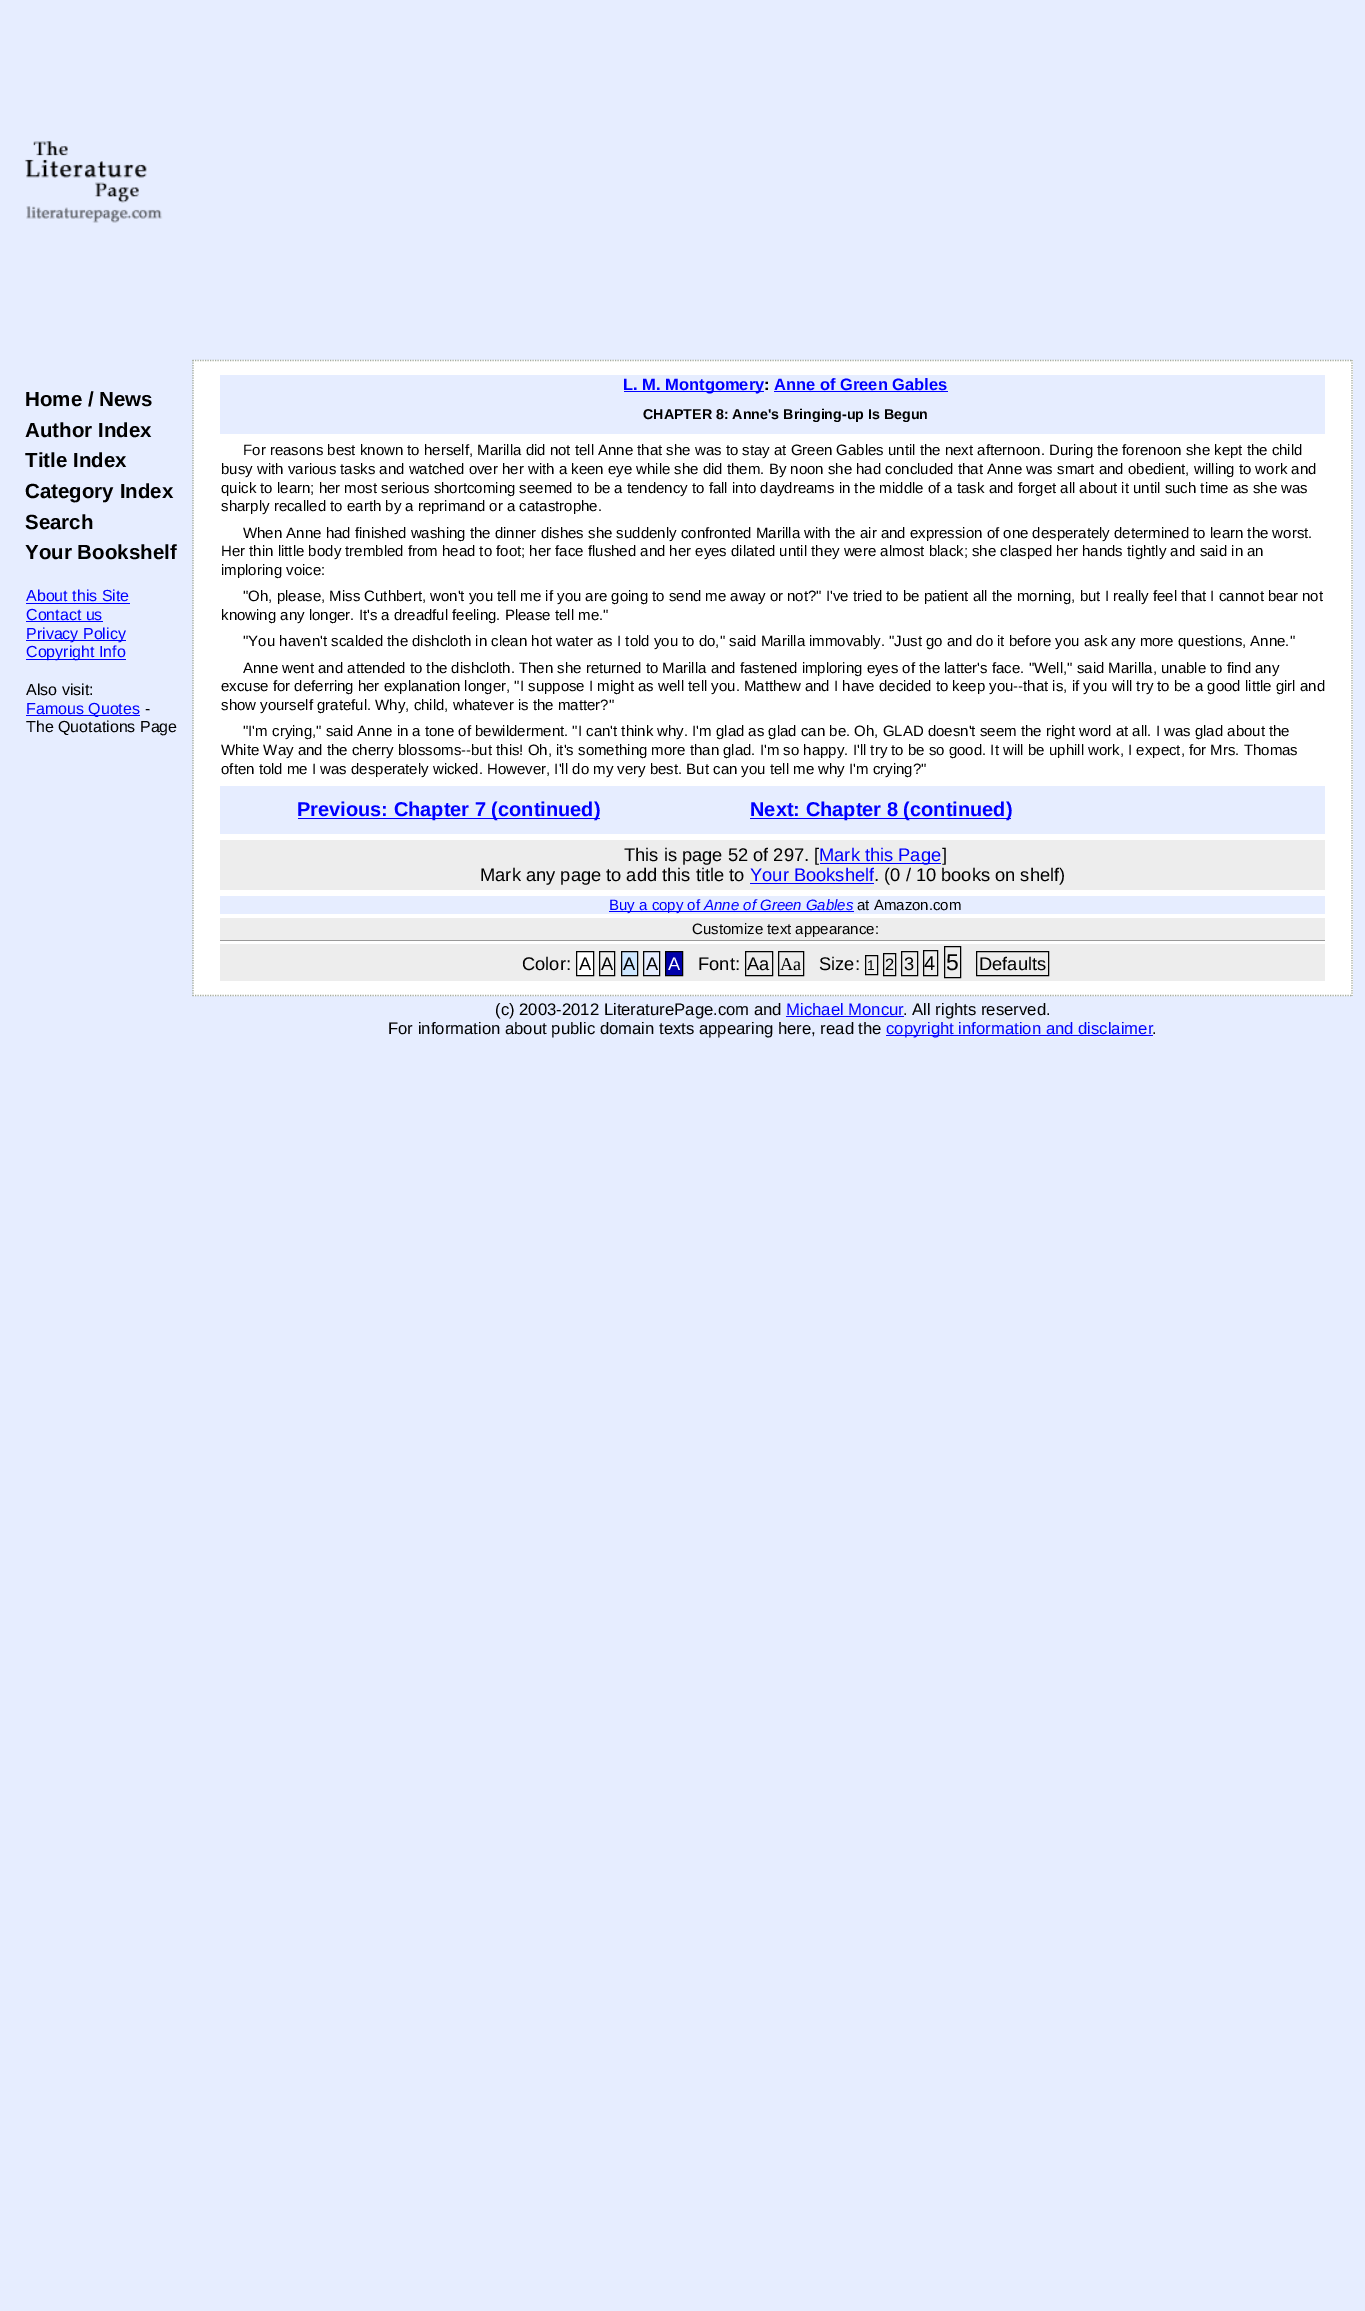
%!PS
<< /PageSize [1365 2311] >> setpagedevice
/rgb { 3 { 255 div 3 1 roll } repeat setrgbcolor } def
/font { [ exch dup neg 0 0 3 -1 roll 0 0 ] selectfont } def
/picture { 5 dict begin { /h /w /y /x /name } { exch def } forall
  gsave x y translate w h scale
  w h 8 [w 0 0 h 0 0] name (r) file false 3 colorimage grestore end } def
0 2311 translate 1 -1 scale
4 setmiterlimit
230 237 255 rgb
0 0 1365 2311 rectfill
(img/1.rgb) 24 141 139 82 picture
[
  [26 603 104 1 0 0 255]
  [26 621 77 1 0 0 255]
  [26 640 100 1 0 0 255]
  [26 659 100 1 0 0 255]
  [26 715 114 1 0 0 255]
  [193 360 1160 636 255 255 255]
] { aload pop rgb rectfill } forall
166 173 159 rgb
1.2 setlinewidth
[1.25 1.25] 0 setdash
192.5 360.5 moveto 1352.5 360.5 lineto stroke
1352 360 moveto 1352 996 lineto stroke
192.5 995.5 moveto 1352.5 995.5 lineto stroke
193 360 moveto 193 996 lineto stroke
[
  [220 375 1105 59 230 237 255]
  [624 391 140 1 0 0 255]
  [774 391 174 1 0 0 255]
  [220 786 1105 48 230 237 255]
  [298 818 302 1 0 0 255]
  [750 818 261 1 0 0 255]
  [220 840 1105 50 237 237 237]
  [820 863 121 1 0 0 255]
  [750 883 124 1 0 0 255]
  [220 896 1105 18 230 237 255]
  [609 911 245 1 0 0 255]
  [220 918 1105 22 237 237 237]
  [220 940 1105 1 153 153 153]
  [220 944 1105 37 237 237 237]
] { aload pop rgb rectfill } forall
255 255 255 rgb
576.5 951.5 moveto 593.5 951.5 lineto 593.5 975.5 lineto 576.5 975.5 lineto closepath gsave fill grestore
0 0 0 rgb
1 setlinewidth
[] 0 setdash
stroke
240 240 240 rgb
599.5 951.5 moveto 614.5 951.5 lineto 614.5 975.5 lineto 599.5 975.5 lineto closepath gsave fill grestore
0 0 0 rgb
stroke
206 231 255 rgb
621.5 951.5 moveto 637.5 951.5 lineto 637.5 975.5 lineto 621.5 975.5 lineto closepath gsave fill grestore
0 0 0 rgb
stroke
230 237 255 rgb
643.5 951.5 moveto 659.5 951.5 lineto 659.5 975.5 lineto 643.5 975.5 lineto closepath gsave fill grestore
0 0 0 rgb
stroke
0 0 170 rgb
665.5 951.5 moveto 682.5 951.5 lineto 682.5 975.5 lineto 665.5 975.5 lineto closepath gsave fill grestore
0 0 0 rgb
stroke
745.5 951.5 27 24 rectstroke
778.5 951.5 25 24 rectstroke
865.5 955.5 12 19 rectstroke
883.5 953.5 12 22 rectstroke
901.5 951.5 16 24 rectstroke
923.5 950.5 14 25 rectstroke
944.5 946.5 16 31 rectstroke
976.5 951.5 72 24 rectstroke
0 0 255 rgb
786 1016 118 1 rectfill
886 1035 267 1 rectfill
/LiberationSans-Bold 20.5 font
0 0 0 rgb
[
  [(Home / News) 25 406]
  [(Author Index) 25 437]
  [(Title Index) 25 467]
  [(Category Index) 25 498]
  [(Search) 25 529]
  [(Your Bookshelf) 25 559]
] { aload pop moveto show } forall
/LiberationSans-Regular 16 font
0 0 255 rgb
[
  [(About this Site) 26 601]
  [(Contact us) 26 620]
  [(Privacy Policy) 26 639]
  [(Copyright Info) 26 657]
] { aload pop moveto show } forall
0 0 0 rgb
26 695 moveto (Also visit:) show
0 0 255 rgb
26 714 moveto (Famous Quotes) show
0 0 0 rgb
145 714 moveto (-) show
26 732 moveto (The Quotations Page) show
/LiberationSans-Bold 16.5 font
0 0 255 rgb
623 390 moveto (L. M. Montgomery) show
0 0 0 rgb
764 390 moveto (:) show
0 0 255 rgb
774 390 moveto (Anne of Green Gables) show
/LiberationSans-Bold 14.25 font
0 0 0 rgb
643 419 moveto (CHAPTER 8: Anne's Bringing-up Is Begun) show
/LiberationSans-Regular 15 font
[
  [(For reasons best known to herself, Marilla did not tell Anne that she was to stay at Green Gables until the next afternoon. During the forenoon she kept the child) 243 455]
  [(busy with various tasks and watched over her with a keen eye while she did them. By noon she had concluded that Anne was smart and obedient, willing to work and) 221 474]
  [(quick to learn; her most serious shortcoming seemed to be a tendency to fall into daydreams in the middle of a task and forget all about it until such time as she was) 221 493]
  [(sharply recalled to earth by a reprimand or a catastrophe.) 221 511]
  [(When Anne had finished washing the dinner dishes she suddenly confronted Marilla with the air and expression of one desperately determined to learn the worst.) 243 538]
  [(Her thin little body trembled from head to foot; her face flushed and her eyes dilated until they were almost black; she clasped her hands tightly and said in an) 221 556]
  [(imploring voice:) 221 575]
  [("Oh, please, Miss Cuthbert, won't you tell me if you are going to send me away or not?" I've tried to be patient all the morning, but I really feel that I cannot bear not) 243 601]
  [(knowing any longer. It's a dreadful feeling. Please tell me.") 221 620]
  [("You haven't scalded the dishcloth in clean hot water as I told you to do," said Marilla immovably. "Just go and do it before you ask any more questions, Anne.") 243 646]
  [(Anne went and attended to the dishcloth. Then she returned to Marilla and fastened imploring eyes of the latter's face. "Well," said Marilla, unable to find any) 243 673]
  [(excuse for deferring her explanation longer, "I suppose I might as well tell you. Matthew and I have decided to keep you--that is, if you will try to be a good little girl and) 221 691]
  [(show yourself grateful. Why, child, whatever is the matter?") 221 710]
  [("I'm crying," said Anne in a tone of bewilderment. "I can't think why. I'm glad as glad can be. Oh, GLAD doesn't seem the right word at all. I was glad about the) 243 736]
  [(White Way and the cherry blossoms--but this! Oh, it's something more than glad. I'm so happy. I'll try to be so good. It will be uphill work, I expect, for Mrs. Thomas) 221 755]
  [(often told me I was desperately wicked. However, I'll do my very best. But can you tell me why I'm crying?") 221 774]
] { aload pop moveto show } forall
/LiberationSans-Bold 20 font
0 0 255 rgb
297 816 moveto (Previous: Chapter 7 \(continued\)) show
750 816 moveto (Next: Chapter 8 \(continued\)) show
/LiberationSans-Regular 18.3 font
0 0 0 rgb
624 861 moveto (This is page 52 of 297. [) show
0 0 255 rgb
819 861 moveto (Mark this Page) show
0 0 0 rgb
942 861 moveto (]) show
480 881 moveto (Mark any page to add this title to) show
0 0 255 rgb
750 881 moveto (Your Bookshelf) show
0 0 0 rgb
874 881 moveto (. \(0 / 10 books on shelf\)) show
/LiberationSans-Regular 15 font
0 0 255 rgb
609 910 moveto (Buy a copy of) show
/LiberationSans-Italic 15 font
704 910 moveto (Anne of Green Gables) show
/LiberationSans-Regular 15 font
0 0 0 rgb
857 910 moveto (at Amazon.com) show
692 934 moveto (Customize text appearance:) show
/LiberationSans-Regular 18.3 font
[
  [(Color:) 522 970]
  [(A) 579 970]
  [(A) 601 970]
  [(A) 623 970]
  [(A) 646 970]
] { aload pop moveto show } forall
255 255 255 rgb
668 970 moveto (A) show
0 0 0 rgb
698 970 moveto (Font:) show
747 970 moveto (Aa) show
/LiberationSerif-Regular 18.3 font
780 970 moveto (Aa) show
/LiberationSans-Regular 18.3 font
819 970 moveto (Size:) show
/LiberationSans-Regular 14 font
867 970 moveto (1) show
/LiberationSans-Regular 16.5 font
885 970 moveto (2) show
/LiberationSans-Regular 18.3 font
904 970 moveto (3) show
/LiberationSans-Regular 20 font
924 970 moveto (4) show
/LiberationSans-Regular 23 font
946 970 moveto (5) show
/LiberationSans-Regular 18.3 font
979 970 moveto (Defaults) show
/LiberationSans-Regular 16.7 font
495 1015 moveto (\(c\) 2003-2012 LiteraturePage.com and) show
0 0 255 rgb
786 1015 moveto (Michael Moncur) show
0 0 0 rgb
903 1015 moveto (. All rights reserved.) show
388 1034 moveto (For information about public domain texts appearing here, read the) show
0 0 255 rgb
886 1034 moveto (copyright information and disclaimer) show
0 0 0 rgb
1152 1034 moveto (.) show
showpage
